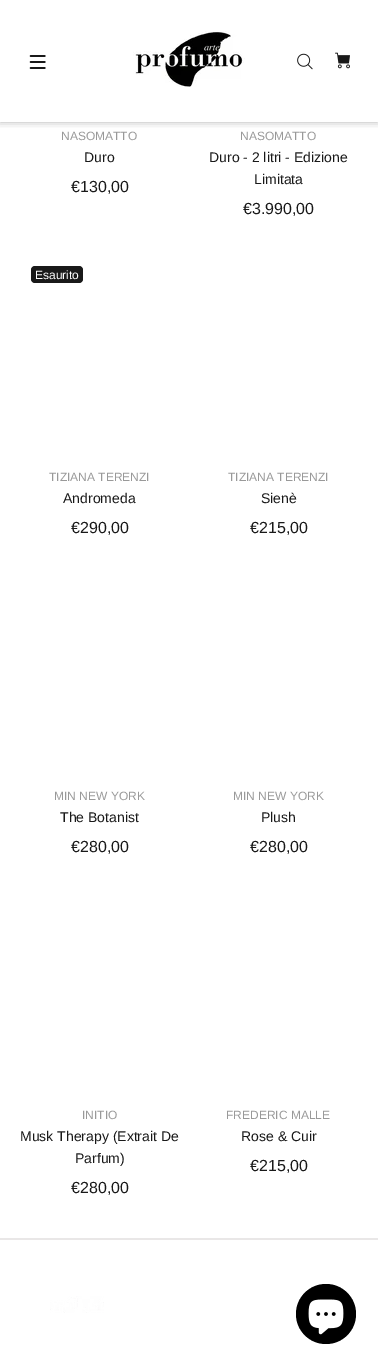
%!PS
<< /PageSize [378 1365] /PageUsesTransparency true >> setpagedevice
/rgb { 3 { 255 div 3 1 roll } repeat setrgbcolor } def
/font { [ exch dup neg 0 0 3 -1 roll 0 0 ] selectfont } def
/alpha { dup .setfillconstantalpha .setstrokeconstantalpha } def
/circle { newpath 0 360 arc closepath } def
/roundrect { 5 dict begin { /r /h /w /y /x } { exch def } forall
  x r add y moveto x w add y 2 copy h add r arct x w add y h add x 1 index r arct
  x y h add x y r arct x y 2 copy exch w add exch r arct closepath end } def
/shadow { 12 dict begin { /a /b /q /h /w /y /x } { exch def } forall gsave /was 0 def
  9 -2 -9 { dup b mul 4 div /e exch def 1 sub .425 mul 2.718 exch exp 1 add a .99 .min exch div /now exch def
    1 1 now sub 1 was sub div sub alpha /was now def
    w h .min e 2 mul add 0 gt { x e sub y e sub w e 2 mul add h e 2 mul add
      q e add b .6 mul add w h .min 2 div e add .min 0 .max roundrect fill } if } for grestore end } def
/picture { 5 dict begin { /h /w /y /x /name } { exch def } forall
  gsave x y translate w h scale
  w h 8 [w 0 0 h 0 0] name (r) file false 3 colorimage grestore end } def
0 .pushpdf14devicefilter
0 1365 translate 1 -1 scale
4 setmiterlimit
255 255 255 rgb
0 0 378 1365 rectfill
gsave
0 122 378 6 rectclip
0 0 0 rgb
0 0 378 122 0 4 0.3 shadow
grestore
(img/1.rgb) 29 55 17 14 picture
(img/2.rgb) 133 31 112 56 picture
(img/3.rgb) 297 53 16 17 picture
(img/4.rgb) 335 52 15 17 picture
25 25 25 rgb
31 266 52 17 4 roundrect fill
233 231 231 rgb
0 1238 378 2 rectfill
(img/5.rgb) 50 1296 54 17 picture
0 0 0 rgb
326 1314 30 circle fill
(img/6.rgb) 308 1299 36 36 picture
/LiberationSans-Regular 12 font
153 153 153 rgb
61 140 moveto (NASOMATTO) show
/LiberationSans-Regular 14 font
25 25 25 rgb
84 162 moveto (Duro) show
/LiberationSans-Regular 16 font
71 192 moveto (€130,00) show
/LiberationSans-Regular 12 font
153 153 153 rgb
240 140 moveto (NASOMATTO) show
/LiberationSans-Regular 14 font
25 25 25 rgb
209 162 moveto (Duro - 2 litri - Edizione) show
254 184 moveto (Limitata) show
/LiberationSans-Regular 16 font
243 214 moveto (€3.990,00) show
/LiberationSans-Regular 12 font
255 255 255 rgb
35 279 moveto (Esaurito) show
153 153 153 rgb
49 481 moveto (TIZIANA TERENZI) show
/LiberationSans-Regular 14 font
25 25 25 rgb
63 503 moveto (Andromeda) show
/LiberationSans-Regular 16 font
71 533 moveto (€290,00) show
/LiberationSans-Regular 12 font
153 153 153 rgb
228 481 moveto (TIZIANA TERENZI) show
/LiberationSans-Regular 14 font
25 25 25 rgb
261 503 moveto (Sienè) show
/LiberationSans-Regular 16 font
250 533 moveto (€215,00) show
/LiberationSans-Regular 12 font
153 153 153 rgb
54 800 moveto (MIN NEW YORK) show
/LiberationSans-Regular 14 font
25 25 25 rgb
60 822 moveto (The Botanist) show
/LiberationSans-Regular 16 font
71 852 moveto (€280,00) show
/LiberationSans-Regular 12 font
153 153 153 rgb
233 800 moveto (MIN NEW YORK) show
/LiberationSans-Regular 14 font
25 25 25 rgb
261 822 moveto (Plush) show
/LiberationSans-Regular 16 font
250 852 moveto (€280,00) show
/LiberationSans-Regular 12 font
153 153 153 rgb
82 1119 moveto (INITIO) show
/LiberationSans-Regular 14 font
25 25 25 rgb
20 1141 moveto (Musk Therapy \(Extrait De) show
75 1163 moveto (Parfum\)) show
/LiberationSans-Regular 16 font
71 1193 moveto (€280,00) show
/LiberationSans-Regular 12 font
153 153 153 rgb
226 1119 moveto (FREDERIC MALLE) show
/LiberationSans-Regular 14 font
25 25 25 rgb
241 1141 moveto (Rose & Cuir) show
/LiberationSans-Regular 16 font
250 1171 moveto (€215,00) show
.poppdf14devicefilter showpage
